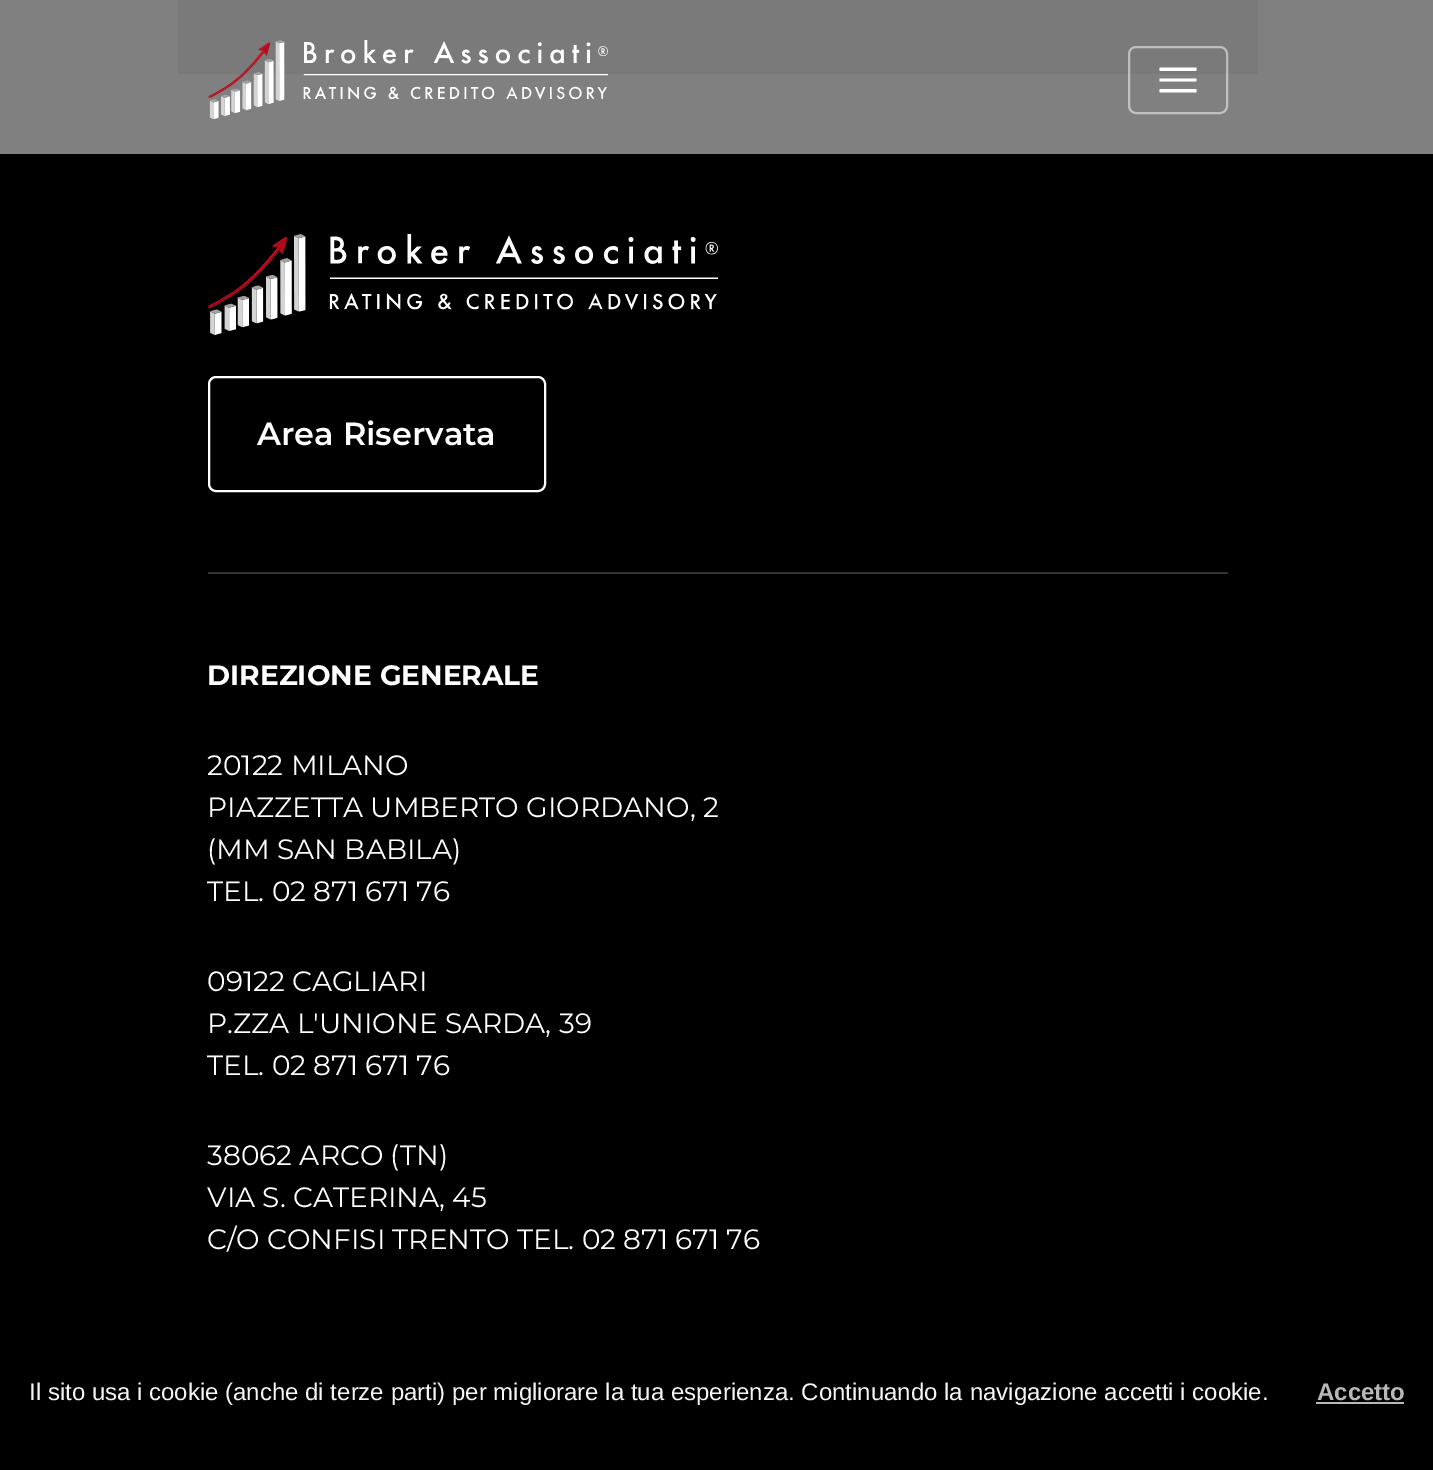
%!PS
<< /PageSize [1433 1470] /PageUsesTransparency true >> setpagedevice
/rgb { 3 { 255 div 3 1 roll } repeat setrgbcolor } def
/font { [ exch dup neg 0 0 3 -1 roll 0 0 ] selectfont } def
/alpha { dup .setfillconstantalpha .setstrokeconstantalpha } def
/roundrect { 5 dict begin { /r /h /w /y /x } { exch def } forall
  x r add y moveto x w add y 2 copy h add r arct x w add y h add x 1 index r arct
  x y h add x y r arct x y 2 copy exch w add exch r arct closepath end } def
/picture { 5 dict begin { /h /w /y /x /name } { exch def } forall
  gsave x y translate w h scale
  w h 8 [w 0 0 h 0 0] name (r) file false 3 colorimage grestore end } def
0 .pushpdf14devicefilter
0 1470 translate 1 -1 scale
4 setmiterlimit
128 128 128 rgb
0 0 1433 1470 rectfill
122 122 122 rgb
178 0 1080 74 rectfill
(img/1.rgb) 208 40 400 79 picture
0.5 alpha
255 255 255 rgb
2 setlinewidth
1129 47 98 66 7 roundrect stroke
1 alpha
1159.5 92.5 moveto 1159.5 89 lineto 1196.5 89 lineto 1196.5 92.5 lineto closepath 1159.5 81.5 moveto 1159.5 78.5 lineto 1196.5 78.5 lineto 1196.5 81.5 lineto closepath 1159.5 71 moveto 1159.5 67.5 lineto 1196.5 67.5 lineto 1196.5 71 lineto closepath fill
0 0 0 rgb
0 154 1433 1316 rectfill
51 51 51 rgb
208 572 1020 2 rectfill
(img/2.rgb) 208 234 510 101 picture
255 255 255 rgb
209 377 336 114 7 roundrect stroke
184 184 184 rgb
1316 1402 88 2 rectfill
/Montserrat-SemiBold 32 font
255 255 255 rgb
257 445 moveto (Area Riservata) show
/Montserrat-Bold 28 font
207 685 moveto (DIREZIONE GENERALE) show
/Montserrat-Regular 28 font
[
  [(20122 MILANO) 207 775]
  [(PIAZZETTA UMBERTO GIORDANO, 2) 207 817]
  [(\(MM SAN BABILA\)) 207 859]
  [(TEL. 02 871 671 76) 207 901]
  [(09122 CAGLIARI) 207 991]
  [(P.ZZA L'UNIONE SARDA, 39) 207 1033]
  [(TEL. 02 871 671 76) 207 1075]
  [(38062 ARCO \(TN\)) 207 1165]
  [(VIA S. CATERINA, 45) 207 1207]
  [(C/O CONFISI TRENTO TEL. 02 871 671 76) 207 1249]
] { aload pop moveto show } forall
/LiberationSans-Regular 24 font
245 245 245 rgb
29 1400 moveto (Il sito usa i cookie \(anche di terze parti\) per migliorare la tua esperienza. Continuando la navigazione accetti i cookie.) show
/LiberationSans-Bold 24 font
184 184 184 rgb
1317 1400 moveto (Accetto) show
.poppdf14devicefilter showpage
